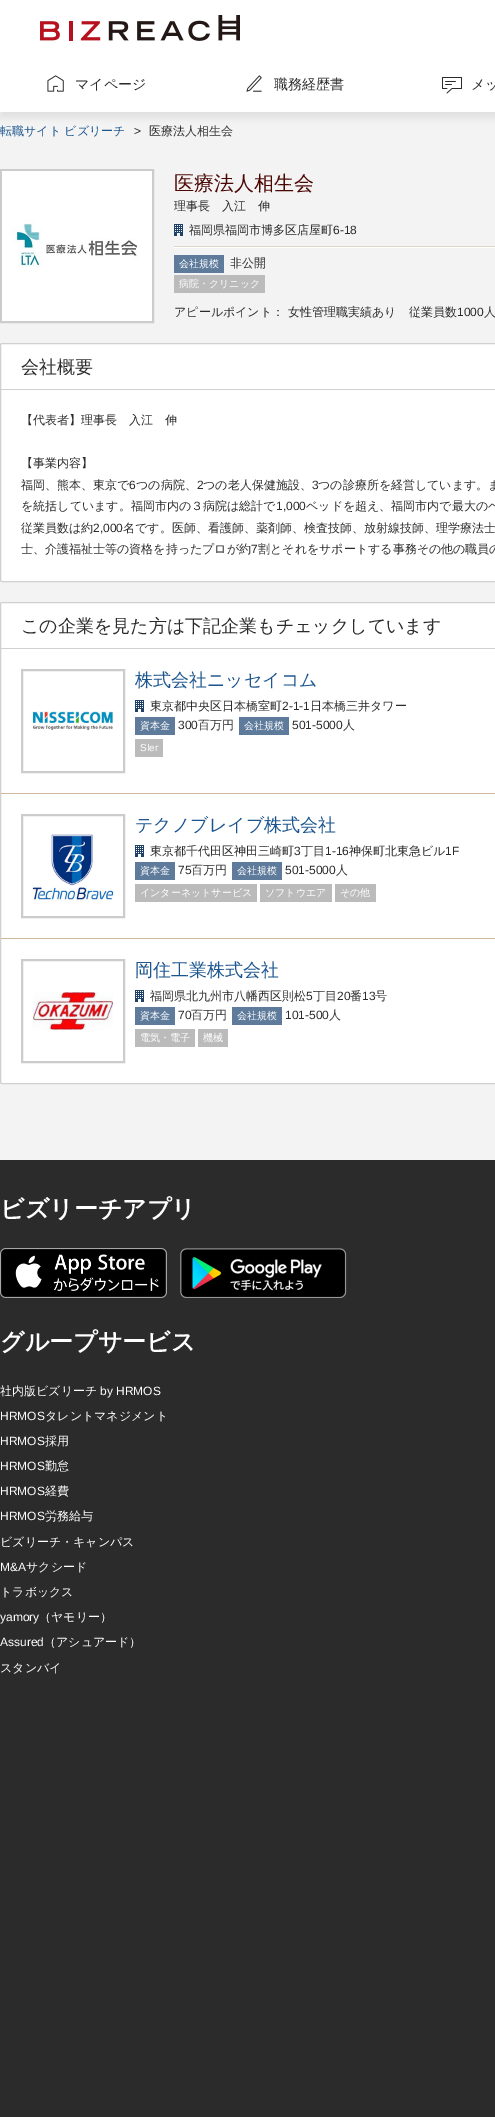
%!PS
<< /PageSize [495 2117] /PageUsesTransparency true >> setpagedevice
/rgb { 3 { 255 div 3 1 roll } repeat setrgbcolor } def
/font { [ exch dup neg 0 0 3 -1 roll 0 0 ] selectfont } def
/alpha { dup .setfillconstantalpha .setstrokeconstantalpha } def
/roundrect { 5 dict begin { /r /h /w /y /x } { exch def } forall
  x r add y moveto x w add y 2 copy h add r arct x w add y h add x 1 index r arct
  x y h add x y r arct x y 2 copy exch w add exch r arct closepath end } def
/shadow { 12 dict begin { /a /b /q /h /w /y /x } { exch def } forall gsave /was 0 def
  9 -2 -9 { dup b mul 4 div /e exch def 1 sub .425 mul 2.718 exch exp 1 add a .99 .min exch div /now exch def
    1 1 now sub 1 was sub div sub alpha /was now def
    w h .min e 2 mul add 0 gt { x e sub y e sub w e 2 mul add h e 2 mul add
      q e add b .6 mul add w h .min 2 div e add .min 0 .max roundrect fill } if } for grestore end } def
/picture { 5 dict begin { /h /w /y /x /name } { exch def } forall
  gsave x y translate w h scale
  w h 8 [w 0 0 h 0 0] name (r) file false 3 colorimage grestore end } def
0 .pushpdf14devicefilter
0 2117 translate 1 -1 scale
4 setmiterlimit
43 43 43 rgb
0 0 495 2117 rectfill
255 255 255 rgb
0 0 495 56 rectfill
(img/1.rgb) 40 15 200 26 picture
243 243 243 rgb
0 112 495 1048 rectfill
19 19 19 rgb
0 62 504 56 0 3 0.08 shadow
255 255 255 rgb
0 56 495 56 rectfill
(img/2.rgb) 47 75 17 17 picture
(img/3.rgb) 246 75 16 17 picture
(img/4.rgb) 442 77 20 17 picture
204 204 204 rgb
2 setlinewidth
1 170 152 152 rectstroke
(img/5.rgb) 2 171 150 150 picture
(img/6.rgb) 174 224 9 12 picture
[
  [174 246 321 1 224 213 195]
  [174 247 321 1 255 255 255]
  [174 255 50 18 94 123 155]
  [174 275 91 18 187 187 187]
] { aload pop rgb rectfill } forall
255 255 255 rgb
0.5 343.5 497 238 1.5 roundrect gsave fill grestore
208 208 208 rgb
1 setlinewidth
stroke
1 389 494 1 rectfill
255 255 255 rgb
0.5 602.5 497 481 1.5 roundrect gsave fill grestore
208 208 208 rgb
stroke
1 648 494 1 rectfill
204 204 204 rgb
2 setlinewidth
22 670 102 102 rectstroke
(img/7.rgb) 31 711 82 20 picture
(img/8.rgb) 135 700 9 12 picture
[
  [135 717 40 18 94 123 155]
  [239 717 50 18 94 123 155]
  [135 739 28 18 187 187 187]
  [1 793 494 1 209 185 159]
] { aload pop rgb rectfill } forall
204 204 204 rgb
22 815 102 102 rectstroke
(img/9.rgb) 31 834 83 67 picture
(img/8.rgb) 135 845 9 12 picture
[
  [135 862 40 18 94 123 155]
  [232 862 50 18 94 123 155]
  [135 884 122 18 187 187 187]
  [260 884 72 18 187 187 187]
  [335 884 41 18 187 187 187]
  [1 938 494 1 209 185 159]
] { aload pop rgb rectfill } forall
204 204 204 rgb
22 960 102 102 rectstroke
(img/10.rgb) 32 992 81 38 picture
(img/8.rgb) 135 990 9 12 picture
[
  [135 1007 40 18 94 123 155]
  [232 1007 50 18 94 123 155]
  [135 1029 60 18 187 187 187]
  [198 1029 30 18 187 187 187]
] { aload pop rgb rectfill } forall
(img/11.rgb) 0 1248 167 50 picture
(img/12.rgb) 180 1248 167 50 picture
/WenQuanYiZenHei-Medium 14 font
43 43 43 rgb
[
  [(マイページ) 75 89]
  [(職務経歴書) 274 89]
  [(メッ) 471 89]
] { aload pop moveto show } forall
/WenQuanYiZenHei-Medium 12 font
29 86 143 rgb
0 135 moveto (転職サイト ビズリーチ) show
/LiberationSans-Regular 12 font
43 43 43 rgb
134 135 moveto (>) show
/WenQuanYiZenHei-Medium 12 font
149 135 moveto (医療法人相生会) show
/WenQuanYiZenHei-Medium 20 font
75 7 4 rgb
174 190 moveto (医療法人相生会) show
/WenQuanYiZenHei-Medium 12 font
43 43 43 rgb
174 210 moveto (理事長　入江　伸) show
189 234 moveto (福岡県福岡市博多区店屋町) show
/LiberationSans-Regular 12 font
333 234 moveto (6-18) show
/WenQuanYiZenHei-Medium 10 font
255 255 255 rgb
179 267 moveto (会社規模) show
/WenQuanYiZenHei-Medium 12 font
43 43 43 rgb
230 267 moveto (非公開) show
/WenQuanYiZenHei-Medium 10 font
255 255 255 rgb
179 287 moveto (病院・クリニック) show
/WenQuanYiZenHei-Medium 12 font
43 43 43 rgb
174 316 moveto (アピールポイント： 女性管理職実績あり) show
409 316 moveto (従業員数) show
/LiberationSans-Regular 12 font
457 316 moveto (1000) show
/WenQuanYiZenHei-Medium 12 font
484 316 moveto (人) show
/WenQuanYiZenHei-Medium 18 font
21 373 moveto (会社概要) show
/WenQuanYiZenHei-Medium 12 font
[
  [(【代表者】理事長　入江　伸) 21 424]
  [(【事業内容】) 21 467]
  [(福岡、熊本、東京で) 21 489]
] { aload pop moveto show } forall
/LiberationSans-Regular 12 font
129 489 moveto (6) show
/WenQuanYiZenHei-Medium 12 font
136 489 moveto (つの病院、) show
/LiberationSans-Regular 12 font
197 489 moveto (2) show
/WenQuanYiZenHei-Medium 12 font
203 489 moveto (つの老人保健施設、) show
/LiberationSans-Regular 12 font
312 489 moveto (3) show
/WenQuanYiZenHei-Medium 12 font
318 489 moveto (つの診療所を経営しています。ま) show
21 510 moveto (を統括しています。福岡市内の３病院は総計で) show
/LiberationSans-Regular 12 font
276 510 moveto (1,000) show
/WenQuanYiZenHei-Medium 12 font
306 510 moveto (ベッドを超え、福岡市内で最大のベ) show
21 532 moveto (従業員数は約) show
/LiberationSans-Regular 12 font
93 532 moveto (2,000) show
/WenQuanYiZenHei-Medium 12 font
123 532 moveto (名です。医師、看護師、薬剤師、検査技師、放射線技師、理学療法士) show
21 553 moveto (士、介護福祉士等の資格を持ったプロが約) show
/LiberationSans-Regular 12 font
251 553 moveto (7) show
/WenQuanYiZenHei-Medium 12 font
258 553 moveto (割とそれをサポートする事務その他の職員の) show
/WenQuanYiZenHei-Medium 18 font
21 632 moveto (この企業を見た方は下記企業もチェックしています) show
29 86 143 rgb
135 686 moveto (株式会社ニッセイコム) show
/WenQuanYiZenHei-Medium 12 font
43 43 43 rgb
150 710 moveto (東京都中央区日本橋室町) show
/LiberationSans-Regular 12 font
282 710 moveto (2-1-1) show
/WenQuanYiZenHei-Medium 12 font
310 710 moveto (日本橋三井タワー) show
/WenQuanYiZenHei-Medium 10 font
255 255 255 rgb
140 729 moveto (資本金) show
/LiberationSans-Regular 12 font
43 43 43 rgb
178 729 moveto (300) show
/WenQuanYiZenHei-Medium 12 font
198 729 moveto (百万円) show
/WenQuanYiZenHei-Medium 10 font
255 255 255 rgb
244 729 moveto (会社規模) show
/LiberationSans-Regular 12 font
43 43 43 rgb
292 729 moveto (501-5000) show
/WenQuanYiZenHei-Medium 12 font
343 729 moveto (人) show
/LiberationSans-Regular 10 font
255 255 255 rgb
140 751 moveto (SIer) show
/WenQuanYiZenHei-Medium 18 font
29 86 143 rgb
135 831 moveto (テクノブレイブ株式会社) show
/WenQuanYiZenHei-Medium 12 font
43 43 43 rgb
150 855 moveto (東京都千代田区神田三崎町) show
/LiberationSans-Regular 12 font
294 855 moveto (3) show
/WenQuanYiZenHei-Medium 12 font
301 855 moveto (丁目) show
/LiberationSans-Regular 12 font
325 855 moveto (1-16) show
/WenQuanYiZenHei-Medium 12 font
349 855 moveto (神保町北東急ビル) show
/LiberationSans-Regular 12 font
445 855 moveto (1F) show
/WenQuanYiZenHei-Medium 10 font
255 255 255 rgb
140 874 moveto (資本金) show
/LiberationSans-Regular 12 font
43 43 43 rgb
178 874 moveto (75) show
/WenQuanYiZenHei-Medium 12 font
191 874 moveto (百万円) show
/WenQuanYiZenHei-Medium 10 font
255 255 255 rgb
237 874 moveto (会社規模) show
/LiberationSans-Regular 12 font
43 43 43 rgb
285 874 moveto (501-5000) show
/WenQuanYiZenHei-Medium 12 font
336 874 moveto (人) show
/WenQuanYiZenHei-Medium 10 font
255 255 255 rgb
[
  [(インターネットサービス) 140 896]
  [(ソフトウエア) 265 896]
  [(その他) 340 896]
] { aload pop moveto show } forall
/WenQuanYiZenHei-Medium 18 font
29 86 143 rgb
135 976 moveto (岡住工業株式会社) show
/WenQuanYiZenHei-Medium 12 font
43 43 43 rgb
150 1000 moveto (福岡県北九州市八幡西区則松) show
/LiberationSans-Regular 12 font
306 1000 moveto (5) show
/WenQuanYiZenHei-Medium 12 font
313 1000 moveto (丁目) show
/LiberationSans-Regular 12 font
337 1000 moveto (20) show
/WenQuanYiZenHei-Medium 12 font
350 1000 moveto (番) show
/LiberationSans-Regular 12 font
362 1000 moveto (13) show
/WenQuanYiZenHei-Medium 12 font
375 1000 moveto (号) show
/WenQuanYiZenHei-Medium 10 font
255 255 255 rgb
140 1019 moveto (資本金) show
/LiberationSans-Regular 12 font
43 43 43 rgb
178 1019 moveto (70) show
/WenQuanYiZenHei-Medium 12 font
191 1019 moveto (百万円) show
/WenQuanYiZenHei-Medium 10 font
255 255 255 rgb
237 1019 moveto (会社規模) show
/LiberationSans-Regular 12 font
43 43 43 rgb
285 1019 moveto (101-500) show
/WenQuanYiZenHei-Medium 12 font
329 1019 moveto (人) show
/WenQuanYiZenHei-Medium 10 font
255 255 255 rgb
140 1041 moveto (電気・電子) show
203 1041 moveto (機械) show
/WenQuanYiZenHei-Bold 24 font
0 1217 moveto (ビズリーチアプリ) show
0 1350 moveto (グループサービス) show
/WenQuanYiZenHei-Medium 12 font
0 1395 moveto (社内版ビズリーチ) show
/LiberationSans-Regular 12 font
100 1395 moveto (by HRMOS) show
0 1420 moveto (HRMOS) show
/WenQuanYiZenHei-Medium 12 font
45 1420 moveto (タレントマネジメント) show
/LiberationSans-Regular 12 font
0 1445 moveto (HRMOS) show
/WenQuanYiZenHei-Medium 12 font
45 1445 moveto (採用) show
/LiberationSans-Regular 12 font
0 1470 moveto (HRMOS) show
/WenQuanYiZenHei-Medium 12 font
45 1470 moveto (勤怠) show
/LiberationSans-Regular 12 font
0 1495 moveto (HRMOS) show
/WenQuanYiZenHei-Medium 12 font
45 1495 moveto (経費) show
/LiberationSans-Regular 12 font
0 1520 moveto (HRMOS) show
/WenQuanYiZenHei-Medium 12 font
45 1520 moveto (労務給与) show
0 1546 moveto (ビズリーチ・キャンパス) show
/LiberationSans-Regular 12 font
0 1571 moveto (M&A) show
/WenQuanYiZenHei-Medium 12 font
26 1571 moveto (サクシード) show
0 1596 moveto (トラボックス) show
/LiberationSans-Regular 12 font
0 1621 moveto (yamory) show
/WenQuanYiZenHei-Medium 12 font
39 1621 moveto (（ヤモリー）) show
/LiberationSans-Regular 12 font
0 1646 moveto (Assured) show
/WenQuanYiZenHei-Medium 12 font
44 1646 moveto (（アシュアード）) show
0 1672 moveto (スタンバイ) show
.poppdf14devicefilter showpage
